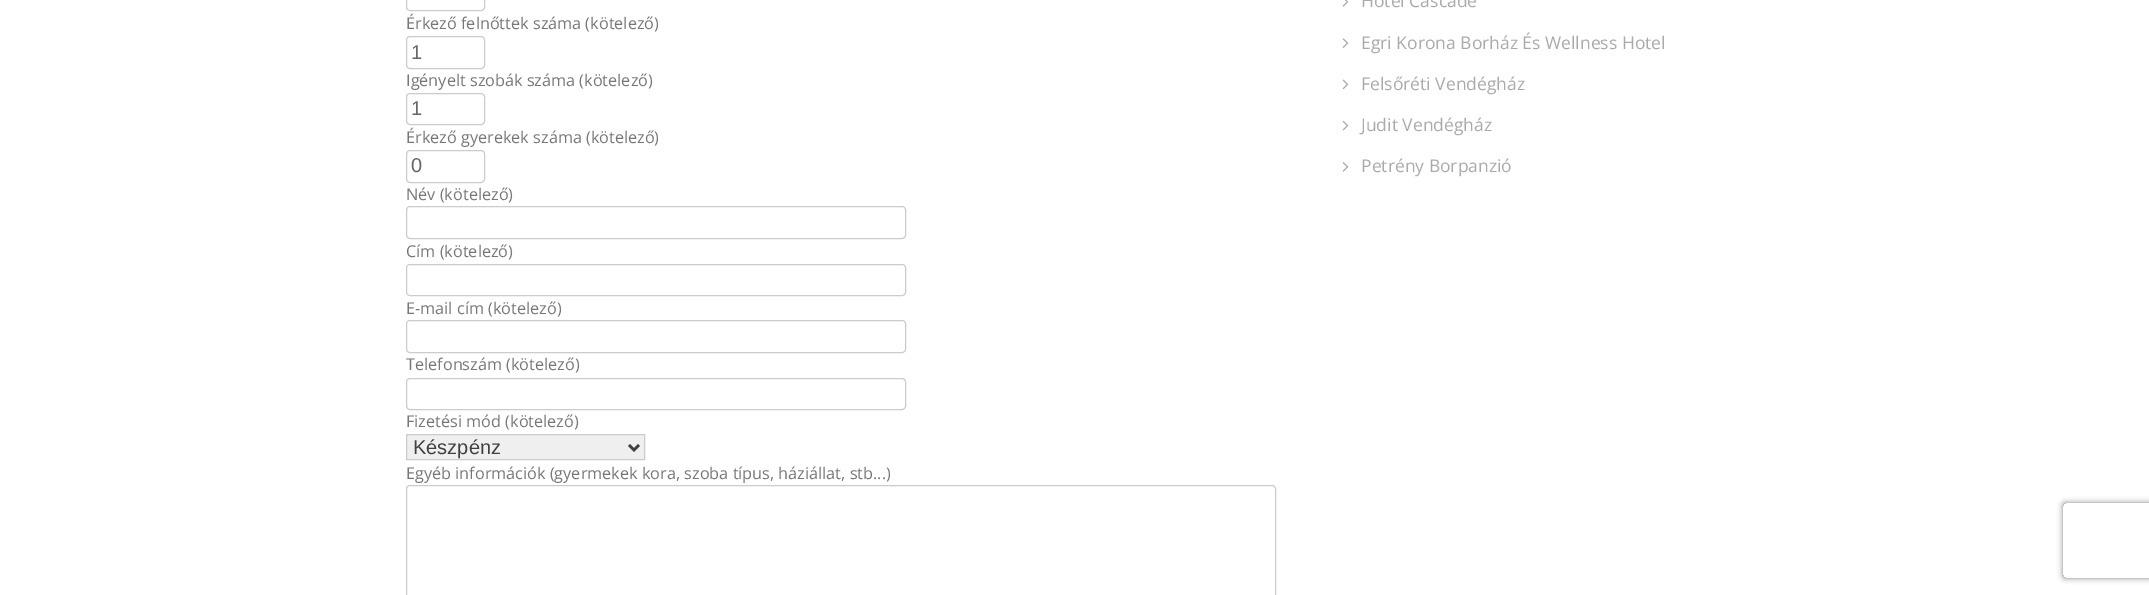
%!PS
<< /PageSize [2149 595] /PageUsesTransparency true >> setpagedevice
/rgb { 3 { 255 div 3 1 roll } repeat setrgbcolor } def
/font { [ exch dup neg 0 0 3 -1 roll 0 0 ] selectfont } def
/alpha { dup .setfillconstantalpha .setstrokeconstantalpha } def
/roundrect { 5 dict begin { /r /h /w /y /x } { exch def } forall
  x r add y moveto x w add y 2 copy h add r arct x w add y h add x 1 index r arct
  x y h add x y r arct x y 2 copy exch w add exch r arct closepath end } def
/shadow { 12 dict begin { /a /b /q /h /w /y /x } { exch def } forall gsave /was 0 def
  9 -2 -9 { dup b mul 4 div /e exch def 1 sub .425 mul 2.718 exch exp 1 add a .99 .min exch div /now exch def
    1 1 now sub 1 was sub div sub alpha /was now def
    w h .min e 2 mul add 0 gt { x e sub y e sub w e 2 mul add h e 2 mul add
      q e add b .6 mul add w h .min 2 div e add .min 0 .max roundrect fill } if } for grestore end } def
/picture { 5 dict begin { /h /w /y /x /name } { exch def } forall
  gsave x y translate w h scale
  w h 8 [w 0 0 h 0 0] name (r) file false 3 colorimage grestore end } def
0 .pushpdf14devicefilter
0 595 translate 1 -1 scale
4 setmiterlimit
255 255 255 rgb
0 0 2149 595 rectfill
204 204 204 rgb
406.5 -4.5 78 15 3.5 roundrect stroke
406.5 36.5 78 32 3.5 roundrect stroke
406.5 93.5 78 31 3.5 roundrect stroke
406.5 150.5 78 32 3.5 roundrect stroke
406.5 206.5 499 32 3.5 roundrect stroke
406.5 264.5 499 31 3.5 roundrect stroke
406.5 320.5 499 32 3.5 roundrect stroke
406.5 378.5 499 31 3.5 roundrect stroke
239 239 239 rgb
406.5 434.5 moveto 644.5 434.5 lineto 644.5 459.5 lineto 406.5 459.5 lineto closepath gsave fill grestore
204 204 204 rgb
stroke
64 64 64 rgb
2.5 setlinewidth
629 445 moveto 634 450 lineto 639 445 lineto stroke
204 204 204 rgb
1 setlinewidth
406.5 485.5 869 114 3.5 roundrect stroke
(img/1.rgb) 1342 0 7 7 picture
(img/2.rgb) 1342 38 7 10 picture
(img/3.rgb) 1342 79 7 11 picture
(img/4.rgb) 1342 120 7 11 picture
(img/5.rgb) 1342 162 7 10 picture
gsave
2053 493 moveto 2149 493 lineto 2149 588 lineto 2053 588 lineto closepath 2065.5 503 moveto 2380.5 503 lineto 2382 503 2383 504 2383 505.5 curveto 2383 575.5 lineto 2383 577 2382 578 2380.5 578 curveto 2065.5 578 lineto 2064 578 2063 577 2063 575.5 curveto 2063 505.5 lineto 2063 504 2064 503 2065.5 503 curveto closepath eoclip newpath
128 128 128 rgb
2063 503 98 75 2.5 3 1 shadow
grestore
/OpenSans-Regular 16.25 font
119 119 119 rgb
406 29 moveto (Érkező felnőttek száma \(kötelező\)) show
/LiberationSans-Regular 20 font
102 102 102 rgb
411 59 moveto (1) show
/OpenSans-Regular 16.25 font
119 119 119 rgb
406 86 moveto (Igényelt szobák száma \(kötelező\)) show
/LiberationSans-Regular 20 font
102 102 102 rgb
411 115 moveto (1) show
/OpenSans-Regular 16.25 font
119 119 119 rgb
406 143 moveto (Érkező gyerekek száma \(kötelező\)) show
/LiberationSans-Regular 20 font
102 102 102 rgb
411 172 moveto (0) show
/OpenSans-Regular 16.25 font
119 119 119 rgb
[
  [(Név \(kötelező\)) 406 200]
  [(Cím \(kötelező\)) 406 257]
  [(E-mail cím \(kötelező\)) 406 314]
  [(Telefonszám \(kötelező\)) 406 370]
  [(Fizetési mód \(kötelező\)) 406 427]
] { aload pop moveto show } forall
/LiberationSans-Regular 20 font
64 64 64 rgb
413 454 moveto (Készpénz) show
/OpenSans-Regular 16.25 font
119 119 119 rgb
406 479 moveto (Egyéb információk \(gyermekek kora, szoba típus, háziállat, stb...\)) show
/OpenSans-Regular 17.5 font
170 170 170 rgb
[
  [(Hotel Cascade) 1361 7]
  [(Egri Korona Borház És Wellness Hotel) 1361 49]
  [(Felsőréti Vendégház) 1361 90]
  [(Judit Vendégház) 1361 131]
  [(Petrény Borpanzió) 1361 172]
] { aload pop moveto show } forall
.poppdf14devicefilter showpage
